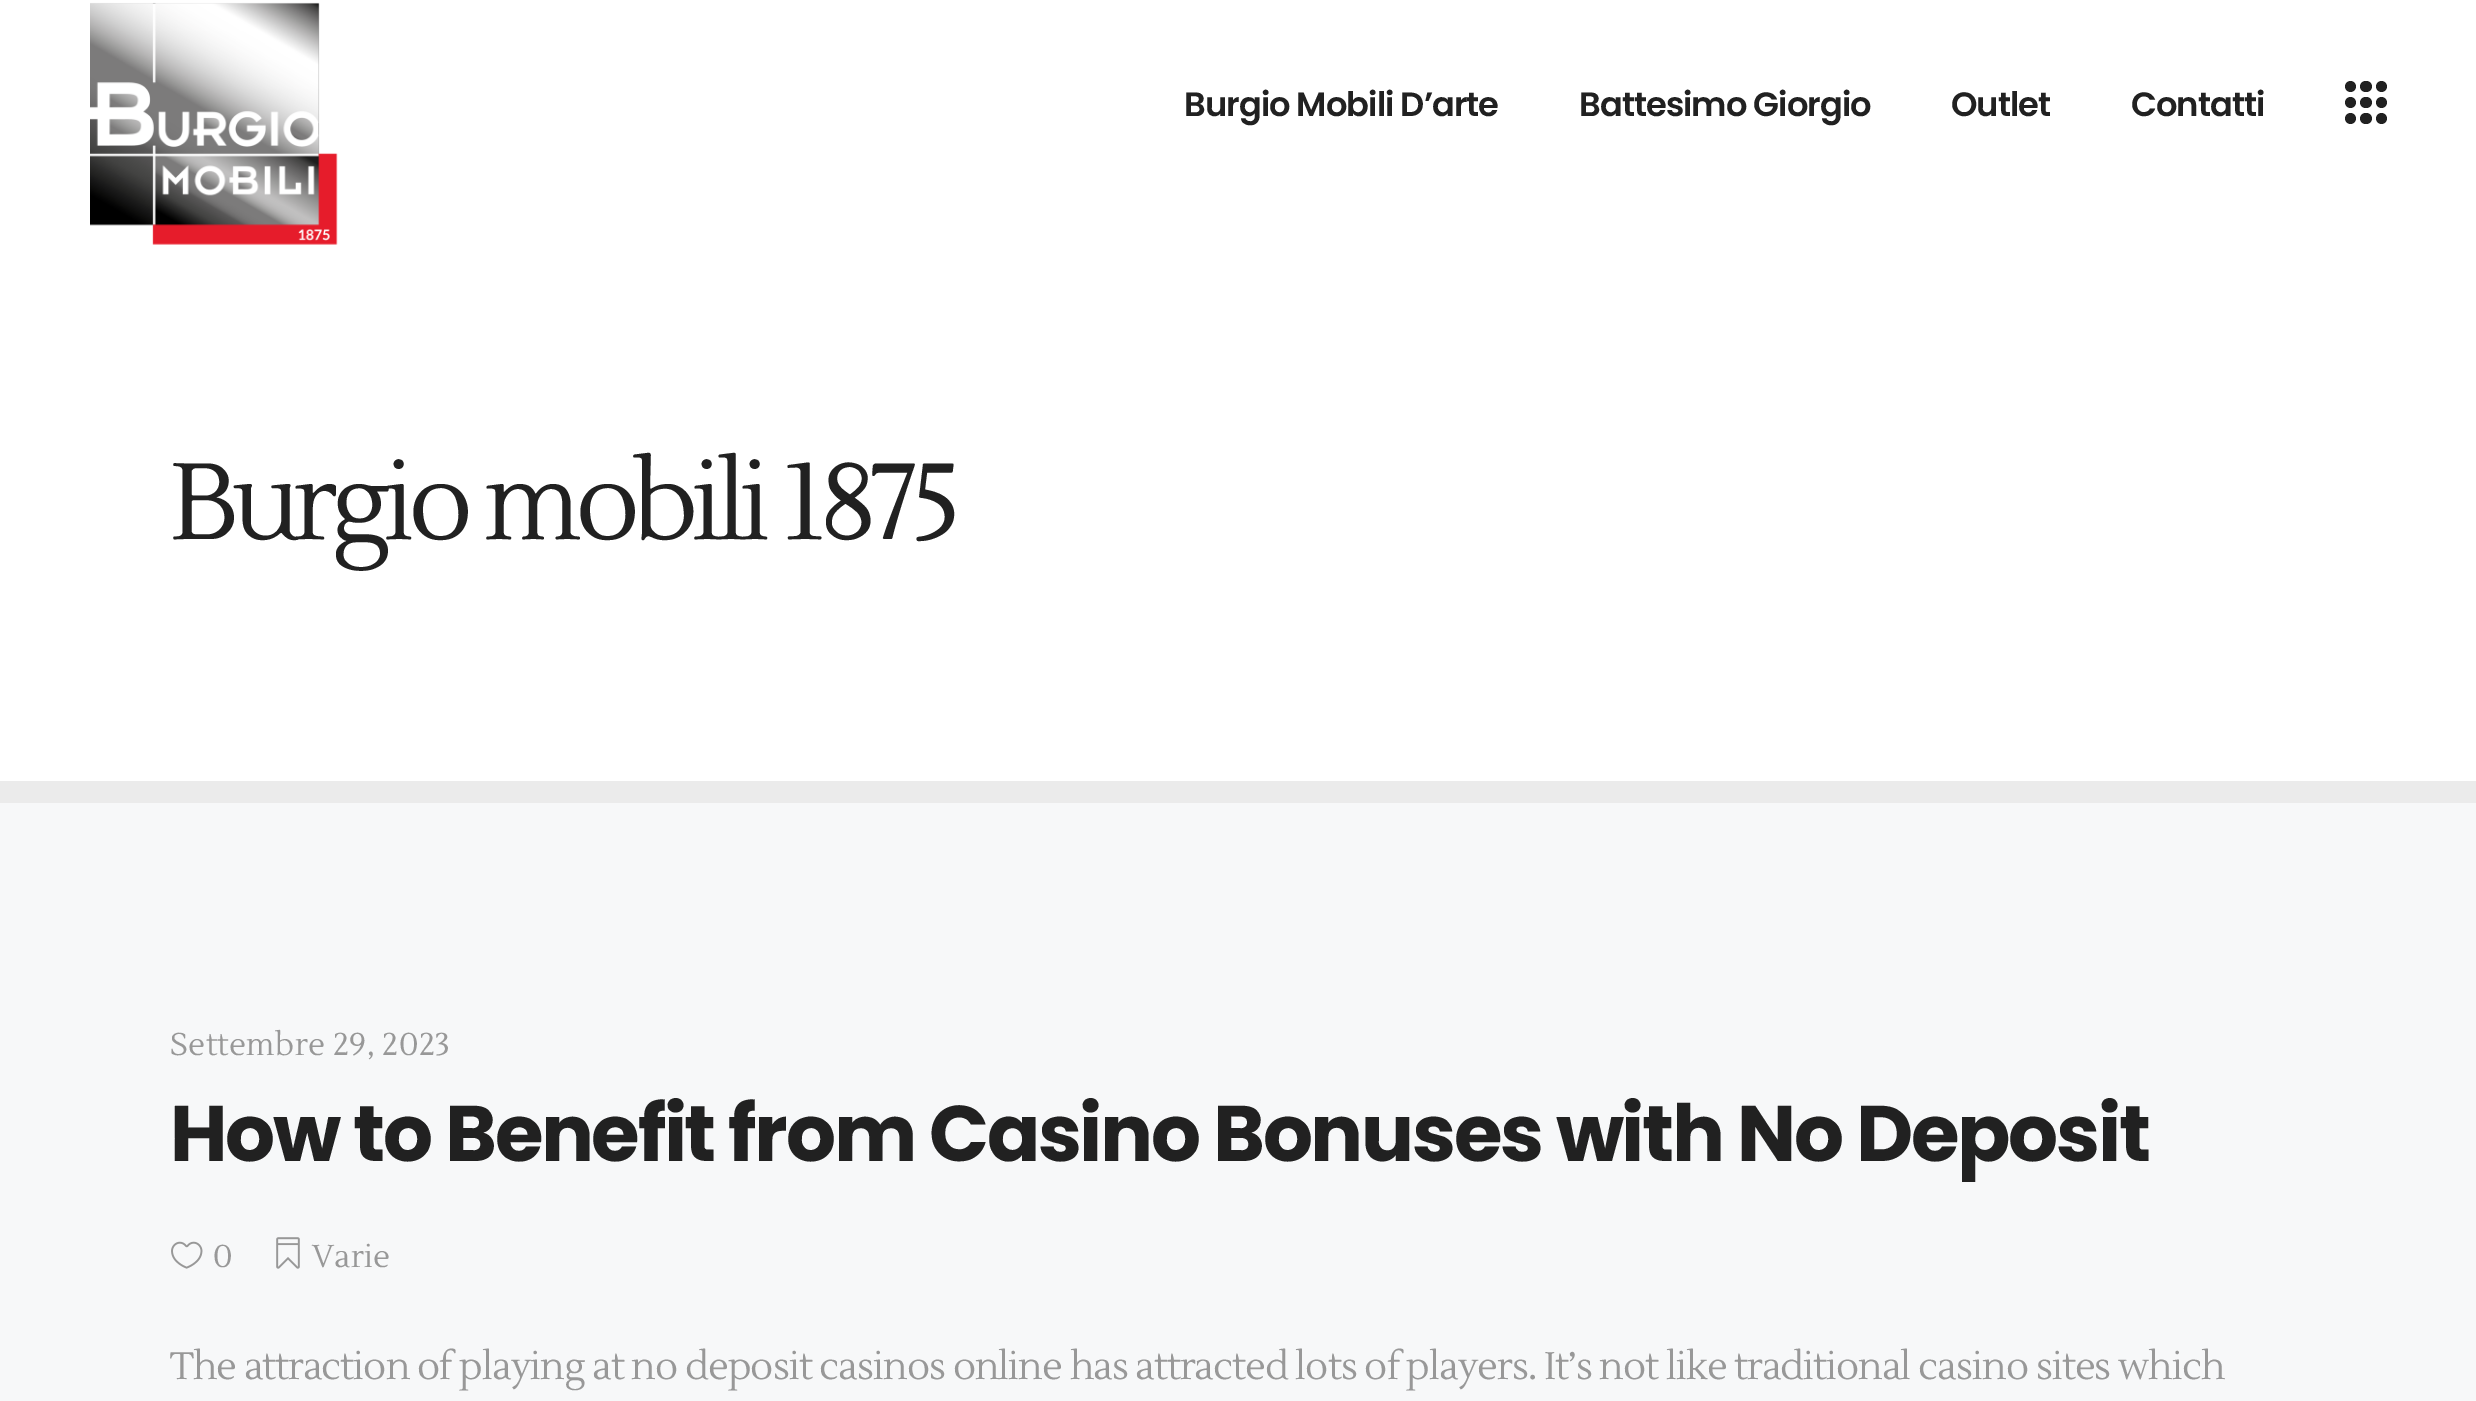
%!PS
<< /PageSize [2476 1401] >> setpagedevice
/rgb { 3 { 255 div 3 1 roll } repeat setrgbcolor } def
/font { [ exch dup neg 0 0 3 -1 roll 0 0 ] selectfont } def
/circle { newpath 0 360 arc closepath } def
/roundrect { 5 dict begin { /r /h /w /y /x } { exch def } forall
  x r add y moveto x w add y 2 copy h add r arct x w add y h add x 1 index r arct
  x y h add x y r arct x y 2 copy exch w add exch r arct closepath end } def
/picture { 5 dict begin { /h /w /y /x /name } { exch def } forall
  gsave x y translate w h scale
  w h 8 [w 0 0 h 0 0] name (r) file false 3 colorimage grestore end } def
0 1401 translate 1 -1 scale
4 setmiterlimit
255 255 255 rgb
0 0 2476 1401 rectfill
(img/1.rgb) 90 2 248 243 picture
33 33 33 rgb
2350.5 86.5 5.5 circle fill
2360 81 12 11 5.5 roundrect fill
2381.5 86.5 5.5 circle fill
2350.5 102.5 5.5 circle fill
2360 97 12 11 5.5 roundrect fill
2381.5 102.5 5.5 circle fill
2350.5 118.5 5.5 circle fill
2360 113 12 11 5.5 roundrect fill
2381.5 118.5 5.5 circle fill
247 248 249 rgb
0 803 2476 598 rectfill
235 235 235 rgb
0 781 2476 22 rectfill
(img/2.rgb) 171 1241 32 28 picture
(img/3.rgb) 276 1237 24 32 picture
/Poppins-SemiBold 33.75 font
33 33 33 rgb
1184 116 moveto -1 0 (Burgio Mobili D’arte) ashow
1579 116 moveto -1 0 (Battesimo Giorgio) ashow
1951 116 moveto -1 0 (Outlet) ashow
2131 116 moveto -1 0 (Contatti) ashow
/Lustria-Regular 108 font
170 539 moveto -7 0 (Burgio mobili 1875) ashow
/Lustria-Regular 31.5 font
152 152 152 rgb
170 1055 moveto 0.3 0 (Settembre 29, 2023) ashow
/Poppins-Bold 78.75 font
33 33 33 rgb
170 1161 moveto -2.35 0 (How to Benefit from Casino Bonuses with No Deposit) ashow
/Lustria-Regular 31.5 font
152 152 152 rgb
213 1267 moveto 0.3 0 (0) ashow
312 1267 moveto 0.3 0 (Varie) ashow
/Lustria-Regular 38.25 font
170 1379 moveto -0.96 0 (The attraction of playing at no deposit casinos online has attracted lots of players. It’s not like traditional casino sites which) ashow
showpage
